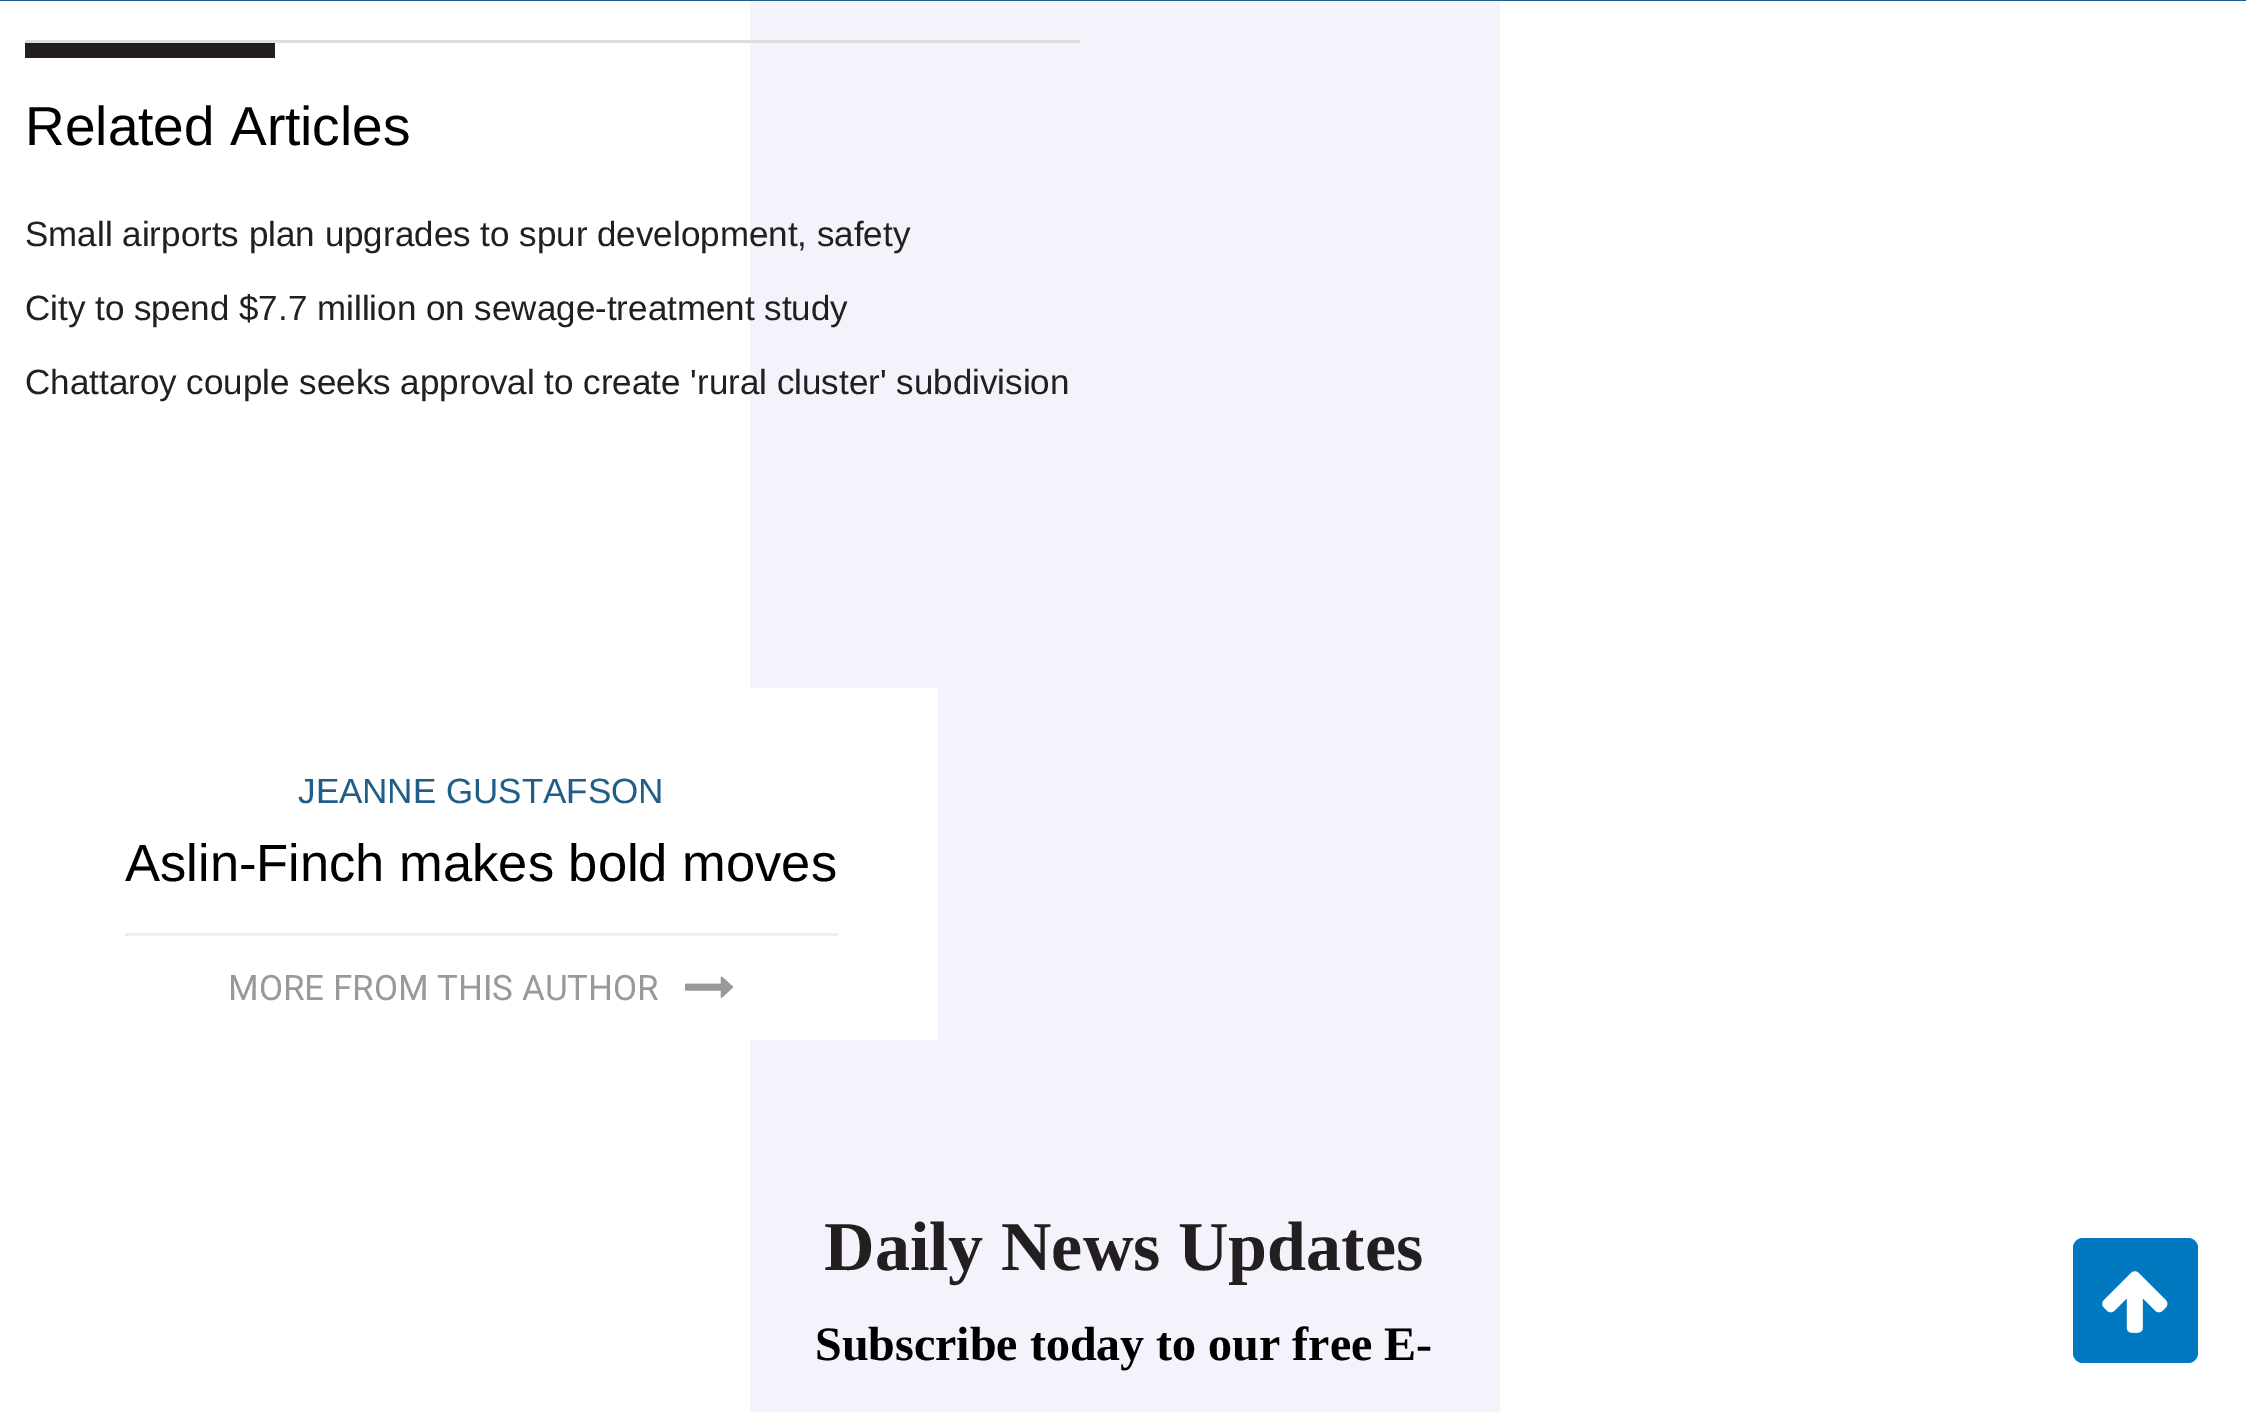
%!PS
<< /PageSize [2246 1412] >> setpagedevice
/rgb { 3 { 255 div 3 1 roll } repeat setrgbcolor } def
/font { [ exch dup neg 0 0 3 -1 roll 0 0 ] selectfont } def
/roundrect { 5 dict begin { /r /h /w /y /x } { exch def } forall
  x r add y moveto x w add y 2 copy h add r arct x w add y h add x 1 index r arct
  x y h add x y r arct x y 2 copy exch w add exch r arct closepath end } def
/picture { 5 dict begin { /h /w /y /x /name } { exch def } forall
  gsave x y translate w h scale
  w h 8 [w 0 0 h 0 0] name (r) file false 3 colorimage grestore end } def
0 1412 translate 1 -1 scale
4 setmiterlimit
255 255 255 rgb
0 0 2246 1412 rectfill
[
  [0 0 2246 1 31 94 137]
  [750 1 750 1411 244 243 251]
  [25 40 1055 3 222 222 222]
  [25 43 250 15 35 31 32]
  [750 688 188 352 255 255 255]
  [125 933 713 3 238 238 238]
] { aload pop rgb rectfill } forall
(img/1.rgb) 685 976 49 22 picture
0 121 193 rgb
2073 1238 125 125 10 roundrect fill
(img/2.rgb) 2102 1271 66 62 picture
/LiberationSans-Regular 55 font
0 0 0 rgb
25 145 moveto (Related Articles) show
/LiberationSans-Regular 35 font
35 31 32 rgb
[
  [(Small airports plan upgrades to spur development, safety) 25 246]
  [(City to spend $7.7 million on sewage-treatment study) 25 320]
  [(Chattaroy couple seeks approval to create 'rural cluster' subdivision) 25 394]
] { aload pop moveto show } forall
31 94 137 rgb
298 803 moveto (JEANNE GUSTAFSON) show
/LiberationSans-Regular 52.5 font
0 0 0 rgb
125 881 moveto (Aslin-Finch makes bold moves) show
/Roboto-Regular 35 font
153 153 153 rgb
228 1000 moveto (MORE FROM THIS AUTHOR) show
/LiberationSerif-Bold 70 font
35 31 32 rgb
824 1270 moveto (Daily News Updates) show
/LiberationSerif-Bold 48 font
0 0 0 rgb
815 1360 moveto (Subscribe today to our free E-) show
showpage
